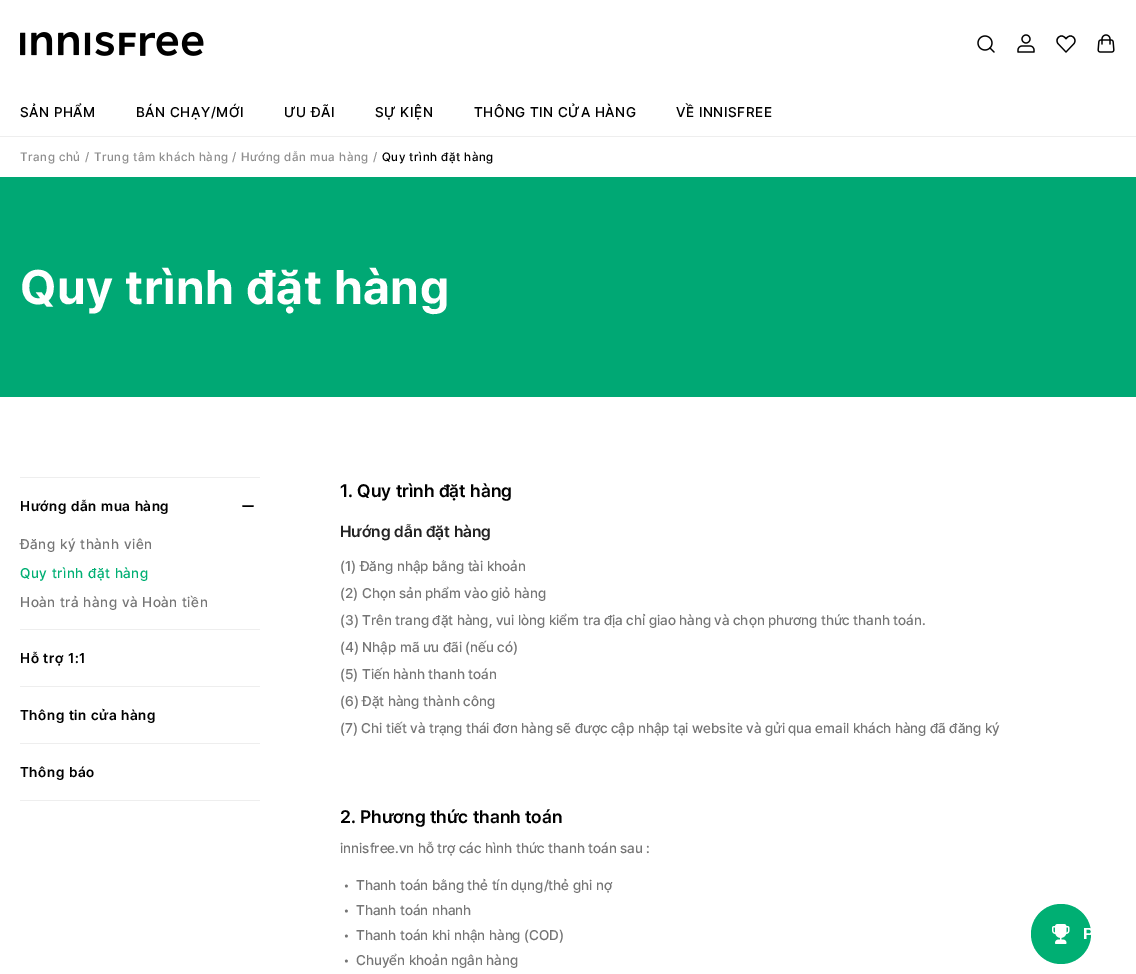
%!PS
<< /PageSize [1136 974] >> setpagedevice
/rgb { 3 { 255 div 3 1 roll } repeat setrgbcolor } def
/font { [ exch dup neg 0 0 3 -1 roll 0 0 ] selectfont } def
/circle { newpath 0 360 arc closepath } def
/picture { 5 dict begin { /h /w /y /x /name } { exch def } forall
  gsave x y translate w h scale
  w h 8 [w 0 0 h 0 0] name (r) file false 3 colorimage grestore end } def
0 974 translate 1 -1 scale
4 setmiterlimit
255 255 255 rgb
0 0 1136 974 rectfill
238 238 238 rgb
0 136 1136 1 rectfill
(img/1.rgb) 20 32 184 24 picture
(img/2.rgb) 977 35 18 18 picture
(img/3.rgb) 1017 34 18 19 picture
(img/4.rgb) 1056 35 20 18 picture
(img/5.rgb) 1097 34 18 19 picture
[
  [0 177 1136 220 0 168 116]
  [20 477 240 1 238 238 238]
  [20 629 240 1 238 238 238]
] { aload pop rgb rectfill } forall
0 0 0 rgb
1.5 setlinewidth
1 setlinecap
1 setlinejoin
243 506 moveto 253 506 lineto stroke
[
  [20 686 240 1 238 238 238]
  [20 743 240 1 238 238 238]
  [20 800 240 1 238 238 238]
] { aload pop rgb rectfill } forall
0 175 115 rgb
1061 934 30 circle fill
(img/6.rgb) 1052 924 18 20 picture
/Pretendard-Medium 14 font
0 0 0 rgb
20 117 moveto 0.6 0 (SẢN PHẨM) ashow
136 117 moveto 0.6 0 (BÁN CHẠY/MỚI) ashow
284 117 moveto 0.6 0 (ƯU ĐÃI) ashow
375 117 moveto 0.6 0 (SỰ KIỆN) ashow
474 117 moveto 0.6 0 (THÔNG TIN CỬA HÀNG) ashow
676 117 moveto 0.6 0 (VỀ INNISFREE) ashow
/Pretendard-Medium 12 font
143 143 143 rgb
20 161 moveto 0.6 0 (Trang chủ) ashow
85 161 moveto 0.6 0 (/) ashow
94 161 moveto 0.6 0 (Trung tâm khách hàng) ashow
232 161 moveto 0.6 0 (/) ashow
241 161 moveto 0.6 0 (Hướng dẫn mua hàng) ashow
373 161 moveto 0.6 0 (/) ashow
0 0 0 rgb
382 161 moveto 0.6 0 (Quy trình đặt hàng) ashow
/Pretendard-Bold 48 font
255 255 255 rgb
20 304 moveto 0.6 0 (Quy trình đặt hàng) ashow
/Pretendard-SemiBold 14 font
0 0 0 rgb
20 511 moveto 0.6 0 (Hướng dẫn mua hàng) ashow
/Pretendard-Medium 14 font
117 117 117 rgb
20 549 moveto 0.6 0 (Đăng ký thành viên) ashow
0 175 115 rgb
20 578 moveto 0.6 0 (Quy trình đặt hàng) ashow
117 117 117 rgb
20 607 moveto 0.6 0 (Hoàn trả hàng và Hoàn tiền) ashow
/Pretendard-SemiBold 14 font
0 0 0 rgb
20 663 moveto 0.6 0 (Hỗ trợ 1:1) ashow
20 720 moveto 0.6 0 (Thông tin cửa hàng) ashow
20 777 moveto 0.6 0 (Thông báo) ashow
/Pretendard-SemiBold 18 font
340 497 moveto (1. Quy trình đặt hàng) show
/Pretendard-SemiBold 16 font
34 34 34 rgb
340 537 moveto (Hướng dẫn đặt hàng) show
/Pretendard-Medium 14 font
117 117 117 rgb
[
  [(\(1\) Đăng nhập bằng tài khoản) 340 571]
  [(\(2\) Chọn sản phẩm vào giỏ hàng) 340 598]
  [(\(3\) Trên trang đặt hàng, vui lòng kiểm tra địa chỉ giao hàng và chọn phương thức thanh toán.) 340 625]
  [(\(4\) Nhập mã ưu đãi \(nếu có\)) 340 652]
  [(\(5\) Tiến hành thanh toán) 340 679]
  [(\(6\) Đặt hàng thành công) 340 706]
  [(\(7\) Chi tiết và trạng thái đơn hàng sẽ được cập nhập tại website và gửi qua email khách hàng đã đăng ký) 340 733]
] { aload pop moveto show } forall
/Pretendard-SemiBold 18 font
0 0 0 rgb
340 823 moveto (2. Phương thức thanh toán) show
/Pretendard-Medium 14 font
117 117 117 rgb
[
  [(innisfree.vn hỗ trợ các hình thức thanh toán sau :) 340 853]
  [(•) 343 890]
  [(Thanh toán bằng thẻ tín dụng/thẻ ghi nợ) 356 890]
  [(•) 343 915]
  [(Thanh toán nhanh) 356 915]
  [(•) 343 940]
  [(Thanh toán khi nhận hàng \(COD\)) 356 940]
  [(•) 343 965]
  [(Chuyển khoản ngân hàng) 356 965]
] { aload pop moveto show } forall
/LiberationSans-Bold 16 font
255 255 255 rgb
1083 939 moveto (P) show
showpage
